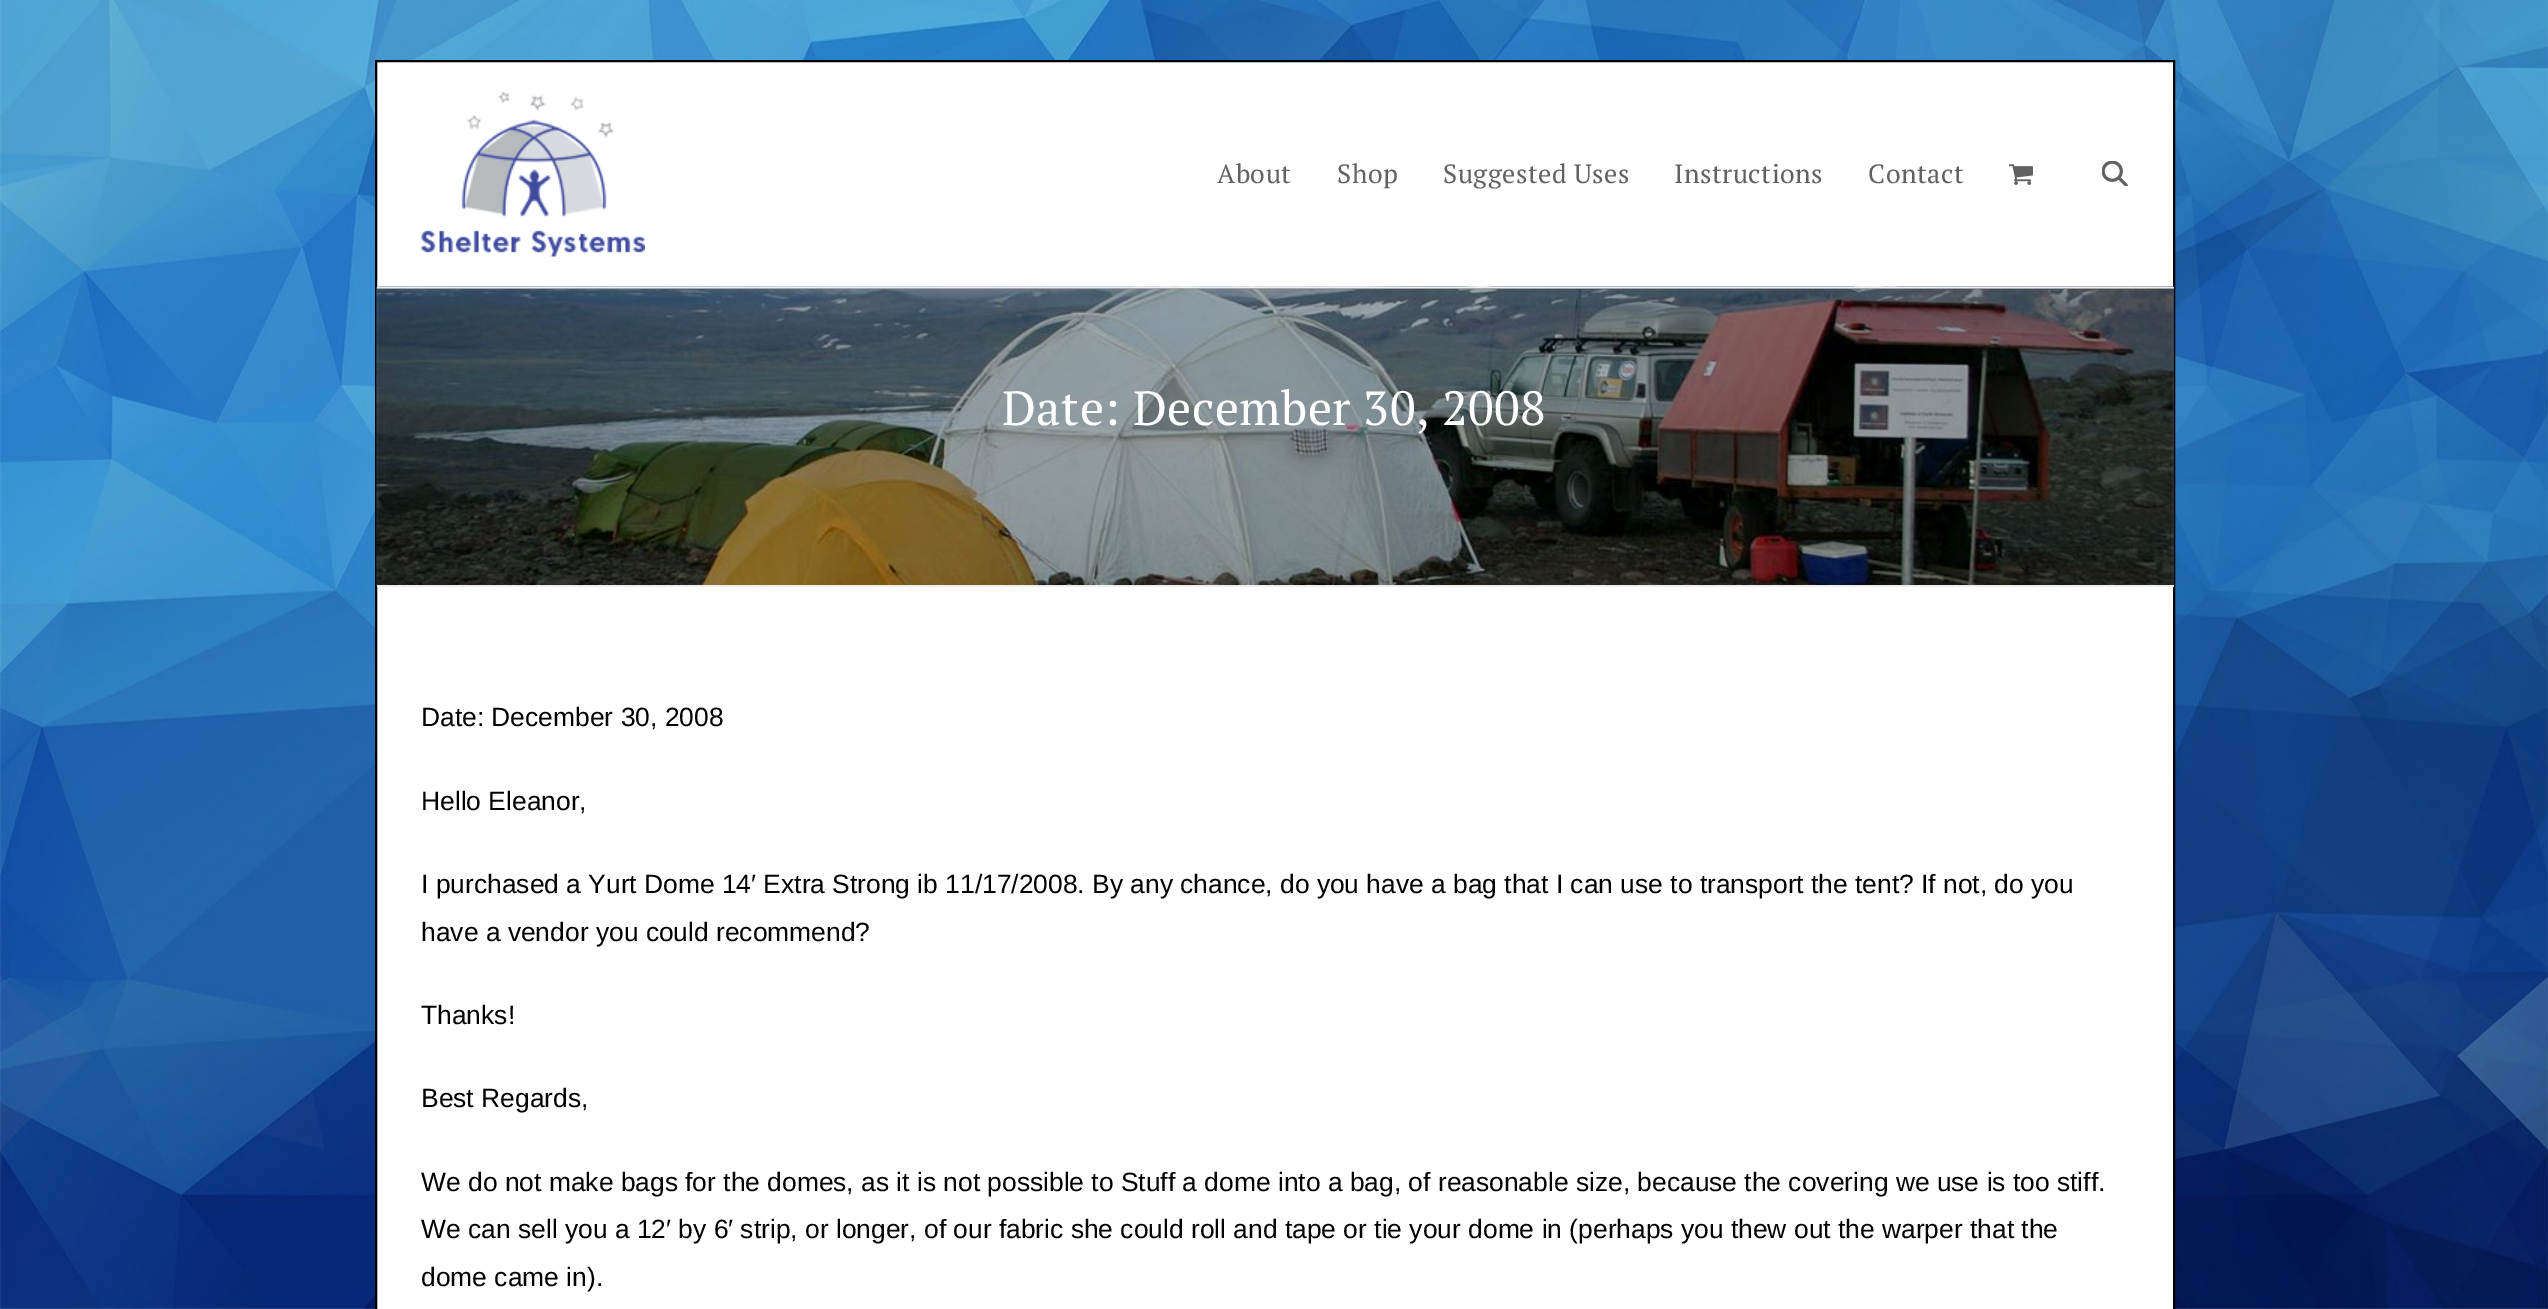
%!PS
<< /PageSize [2548 1309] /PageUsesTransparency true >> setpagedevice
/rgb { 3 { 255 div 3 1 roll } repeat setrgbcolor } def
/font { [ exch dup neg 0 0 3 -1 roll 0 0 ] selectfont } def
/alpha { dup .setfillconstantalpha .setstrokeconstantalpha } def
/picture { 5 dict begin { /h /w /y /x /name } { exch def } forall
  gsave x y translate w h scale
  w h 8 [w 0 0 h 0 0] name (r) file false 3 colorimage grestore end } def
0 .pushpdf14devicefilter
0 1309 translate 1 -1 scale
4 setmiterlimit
255 255 255 rgb
0 0 2548 1309 rectfill
(img/1.rgb) 0 0 2548 1309 picture
376 61 moveto 2174 61 lineto 2174 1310 lineto 376 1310 lineto closepath gsave fill grestore
0 0 0 rgb
2 setlinewidth
stroke
(img/2.rgb) 421 91 224 166 picture
(img/3.rgb) 2009 164 24 21 picture
(img/4.rgb) 2102 161 26 25 picture
53 74 107 rgb
2173 289 1 296 rectfill
(img/5.rgb) 376 286 1798 301 picture
[
  [377 287 1797 2 238 238 238]
  [377 585 1797 2 238 238 238]
] { aload pop rgb rectfill } forall
0.3 alpha
[
  [377 288 1797 297 0 0 0]
] { aload pop rgb rectfill } forall
/PTSerif-Regular 26.4 font
1 alpha
97 97 97 rgb
1217 183 moveto 0.5 0 (About) ashow
1337 183 moveto 0.5 0 (Shop) ashow
1443 183 moveto 0.5 0 (Suggested Uses) ashow
1674 183 moveto 0.5 0 (Instructions) ashow
1868 183 moveto 0.5 0 (Contact) ashow
/PTSerif-Regular 48 font
255 255 255 rgb
1002 425 moveto 0.5 0 (Date: December 30, 2008) ashow
/LiberationSans-Regular 26.4 font
0 0 0 rgb
[
  [(Date: December 30, 2008) 421 726]
  [(Hello Eleanor,) 421 810]
  [(I purchased a Yurt Dome 14′ Extra Strong ib 11/17/2008. By any chance, do you have a bag that I can use to transport the tent? If not, do you) 421 893]
  [(have a vendor you could recommend?) 421 941]
  [(Thanks!) 421 1024]
  [(Best Regards,) 421 1107]
  [(We do not make bags for the domes, as it is not possible to Stuff a dome into a bag, of reasonable size, because the covering we use is too stiff.) 421 1191]
  [(We can sell you a 12′ by 6′ strip, or longer, of our fabric she could roll and tape or tie your dome in \(perhaps you thew out the warper that the) 421 1238]
  [(dome came in\).) 421 1286]
] { aload pop moveto show } forall
.poppdf14devicefilter showpage
